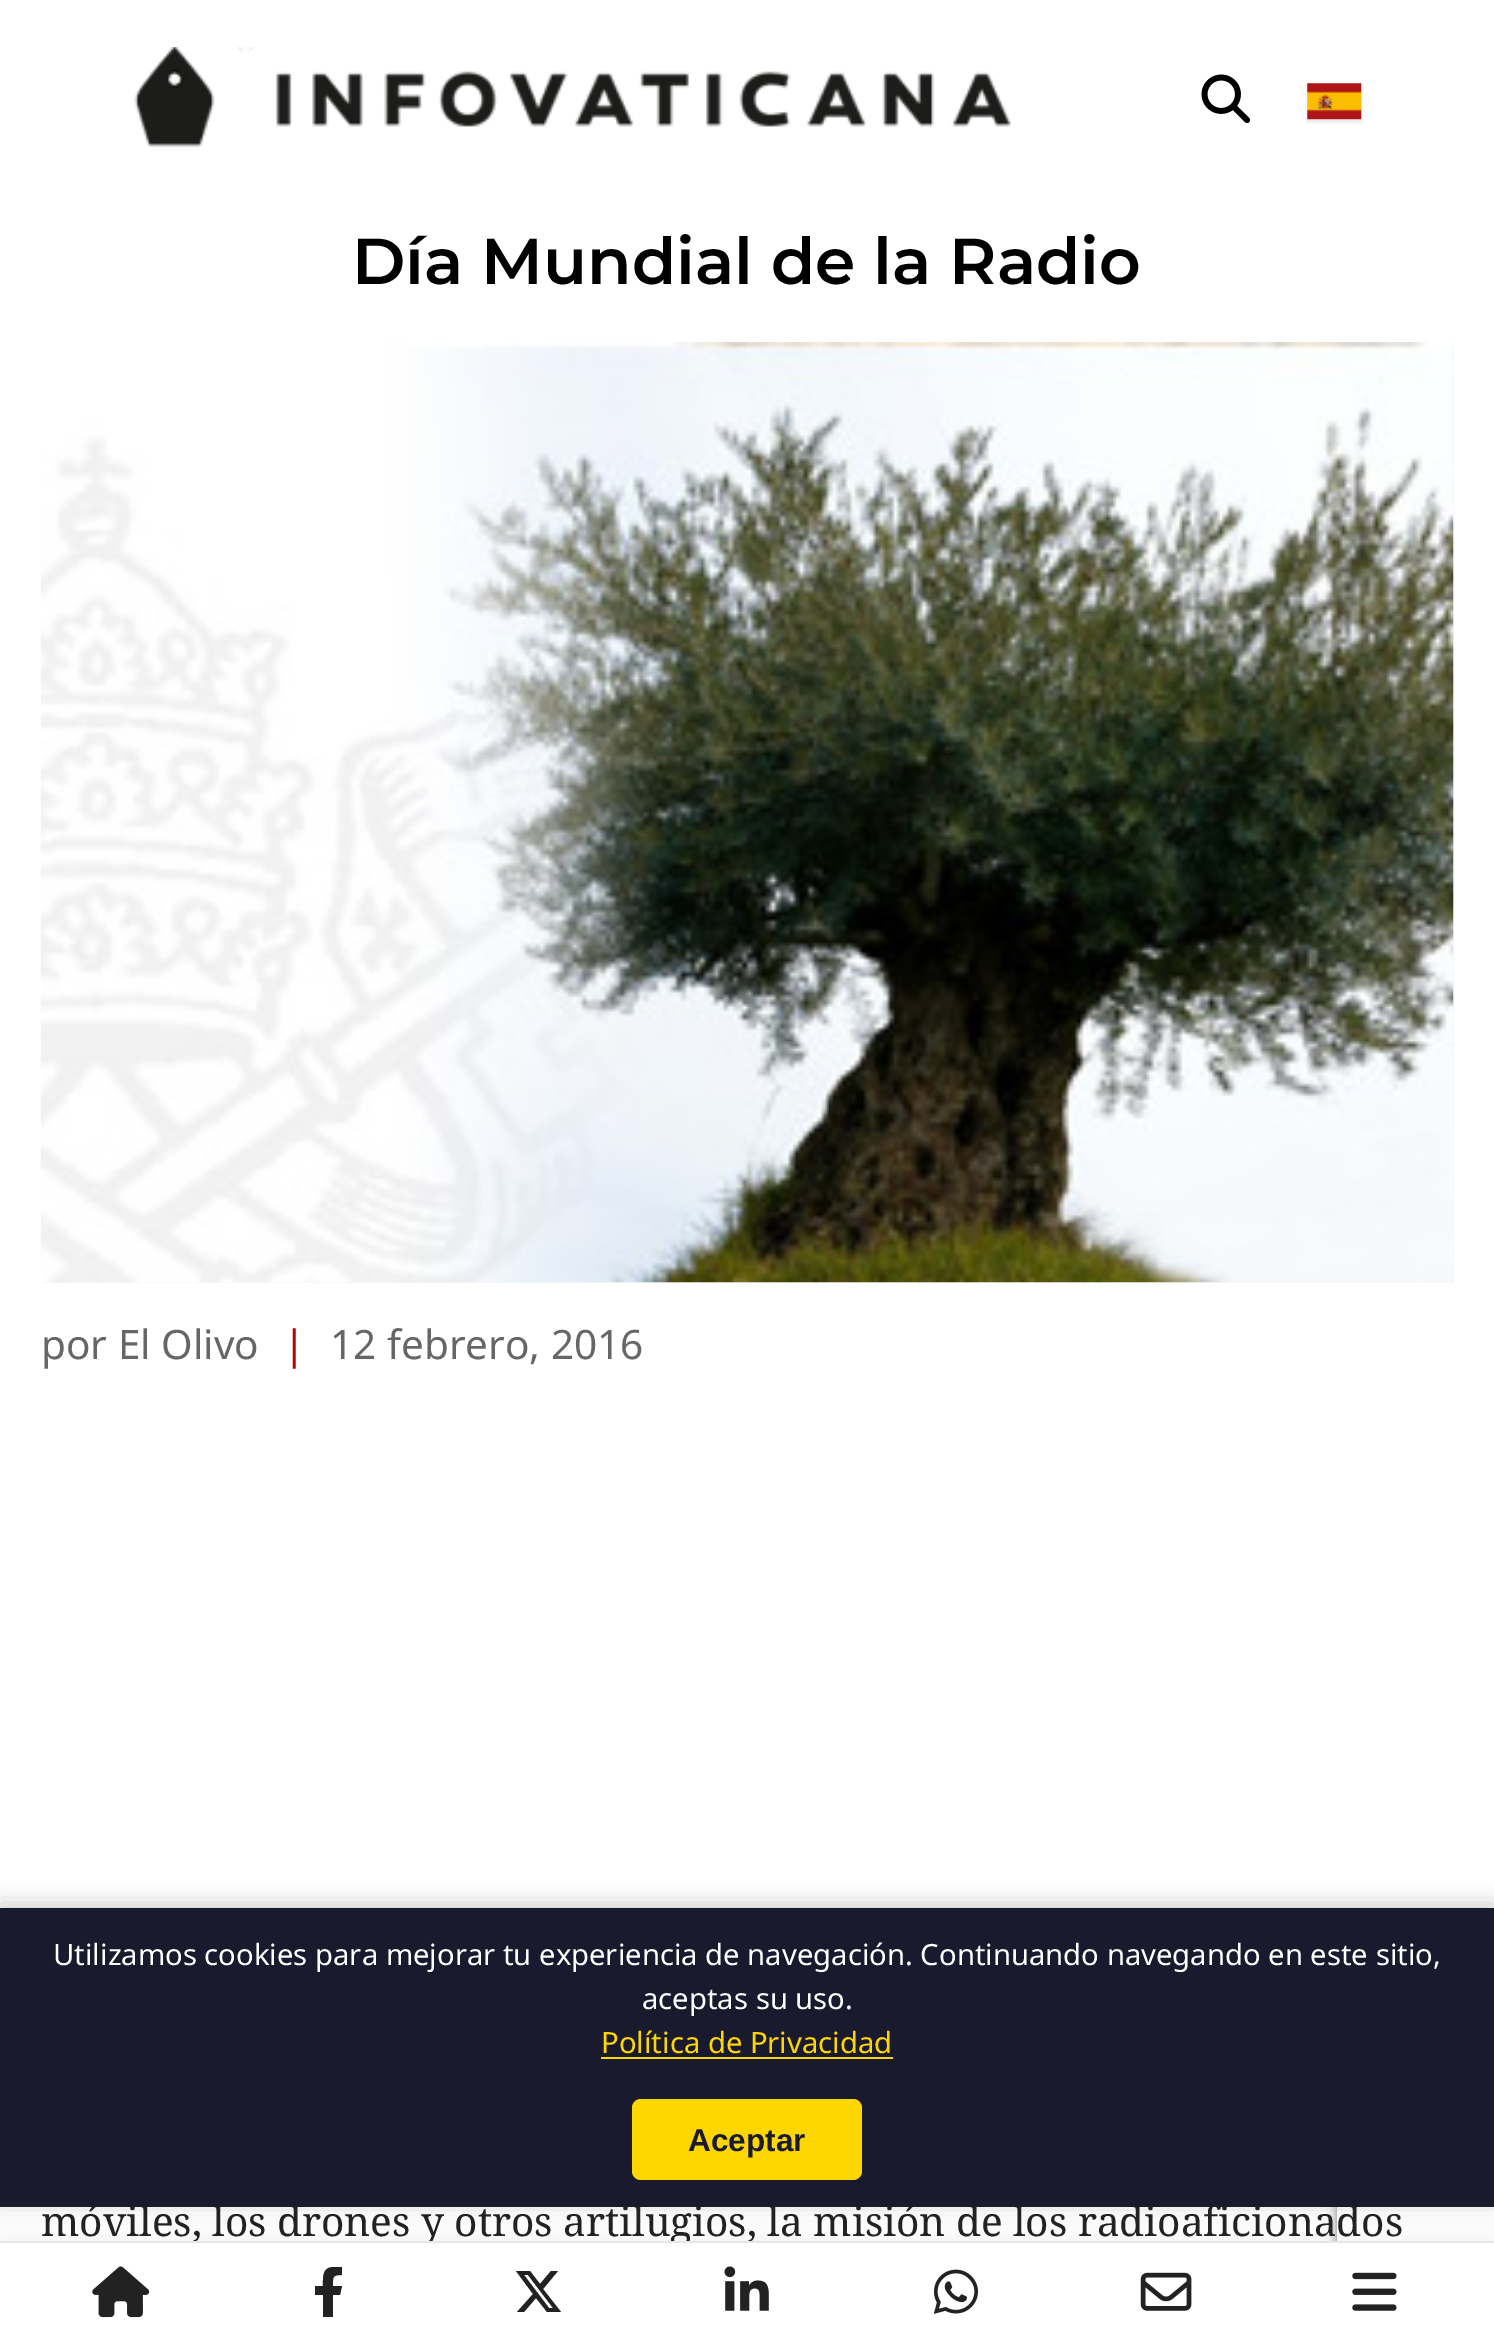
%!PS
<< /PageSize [1494 2342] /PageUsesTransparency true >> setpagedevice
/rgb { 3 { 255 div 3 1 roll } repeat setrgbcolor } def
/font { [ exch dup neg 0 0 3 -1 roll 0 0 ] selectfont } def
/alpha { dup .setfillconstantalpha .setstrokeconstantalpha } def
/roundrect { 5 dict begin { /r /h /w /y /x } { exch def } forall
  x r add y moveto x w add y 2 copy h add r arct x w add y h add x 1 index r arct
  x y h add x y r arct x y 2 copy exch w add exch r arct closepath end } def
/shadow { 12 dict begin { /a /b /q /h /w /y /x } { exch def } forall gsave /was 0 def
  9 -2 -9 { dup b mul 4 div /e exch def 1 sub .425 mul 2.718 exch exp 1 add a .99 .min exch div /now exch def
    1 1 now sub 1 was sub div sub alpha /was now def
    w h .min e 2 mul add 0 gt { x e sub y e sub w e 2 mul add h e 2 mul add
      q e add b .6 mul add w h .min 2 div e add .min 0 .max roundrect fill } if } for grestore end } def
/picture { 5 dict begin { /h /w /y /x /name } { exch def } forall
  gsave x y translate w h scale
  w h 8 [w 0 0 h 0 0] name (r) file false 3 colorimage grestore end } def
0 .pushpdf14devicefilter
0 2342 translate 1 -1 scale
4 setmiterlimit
255 255 255 rgb
0 0 1494 2342 rectfill
(img/1.rgb) 134 47 877 100 picture
(img/2.rgb) 1201 74 50 49 picture
0 0 0 rgb
1307 86 54 36 0 2 0.1 shadow
(img/3.rgb) 1307 83 55 37 picture
247 247 247 rgb
41 342 1413 941 rectfill
(img/4.rgb) 40 342 1414 941 picture
0 0 0 rgb
0 1904 1494 299 0 11 0.2 shadow
gsave
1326 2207 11 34 rectclip
128 128 128 rgb
1337 2176 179 135 5 5.5 1 shadow
grestore
0 2237 1494 101 0 11 0.05 shadow
/Montserrat-SemiBold 64.75 font
352 284 moveto (Día Mundial de la Radio) show
/NotoSans-Regular 40.5 font
102 102 102 rgb
41 1359 moveto (por El Olivo) show
184 0 0 rgb
283 1359 moveto (|) show
102 102 102 rgb
330 1359 moveto (12 febrero, 2016) show
/NotoSerif-Regular 40.5 font
34 34 34 rgb
41 2236 moveto (móviles, los drones y otros artilugios, la misión de los radioaficionados) show
26 26 46 rgb
0 1908 1494 299 rectfill
/NotoSans-Regular 29.25 font
255 255 255 rgb
53 1965 moveto (Utilizamos cookies para mejorar tu experiencia de navegación. Continuando navegando en este sitio,) show
642 2009 moveto (aceptas su uso.) show
255 215 0 rgb
601 2053 moveto (Política de Privacidad) show
601 2057 292 2 rectfill
632 2099 230 81 9 roundrect fill
/LiberationSans-Bold 31.5 font
26 26 46 rgb
688 2151 moveto (Aceptar) show
255 255 255 rgb
0 2243 1494 99 rectfill
230 230 230 rgb
0 2241 1494 2 rectfill
(img/5.rgb) 92 2266 58 52 picture
34 34 34 rgb
340 2295 moveto 342 2286 lineto 333 2286 lineto 333 2277 332 2275 342 2275 curveto 342 2267 lineto 334 2267 lineto 322 2267 323 2277 323 2286 curveto 315 2286 lineto 315 2295 lineto 323 2295 lineto 323 2317 lineto 333 2317 lineto 333 2295 lineto closepath fill
551 2271 moveto 558 2271 lineto 543 2289 lineto 561 2312 lineto 547 2312 lineto 536 2298 lineto 524 2312 lineto 517 2312 lineto 533 2294 lineto 516 2271 lineto 530 2271 lineto 540 2284 lineto closepath 549 2308 moveto 553 2308 lineto 528 2275 lineto 524 2275 lineto closepath fill
(img/6.rgb) 724 2266 45 45 picture
(img/7.rgb) 933 2269 46 45 picture
(img/8.rgb) 1140 2272 52 39 picture
(img/9.rgb) 1352 2272 45 39 picture
.poppdf14devicefilter showpage
